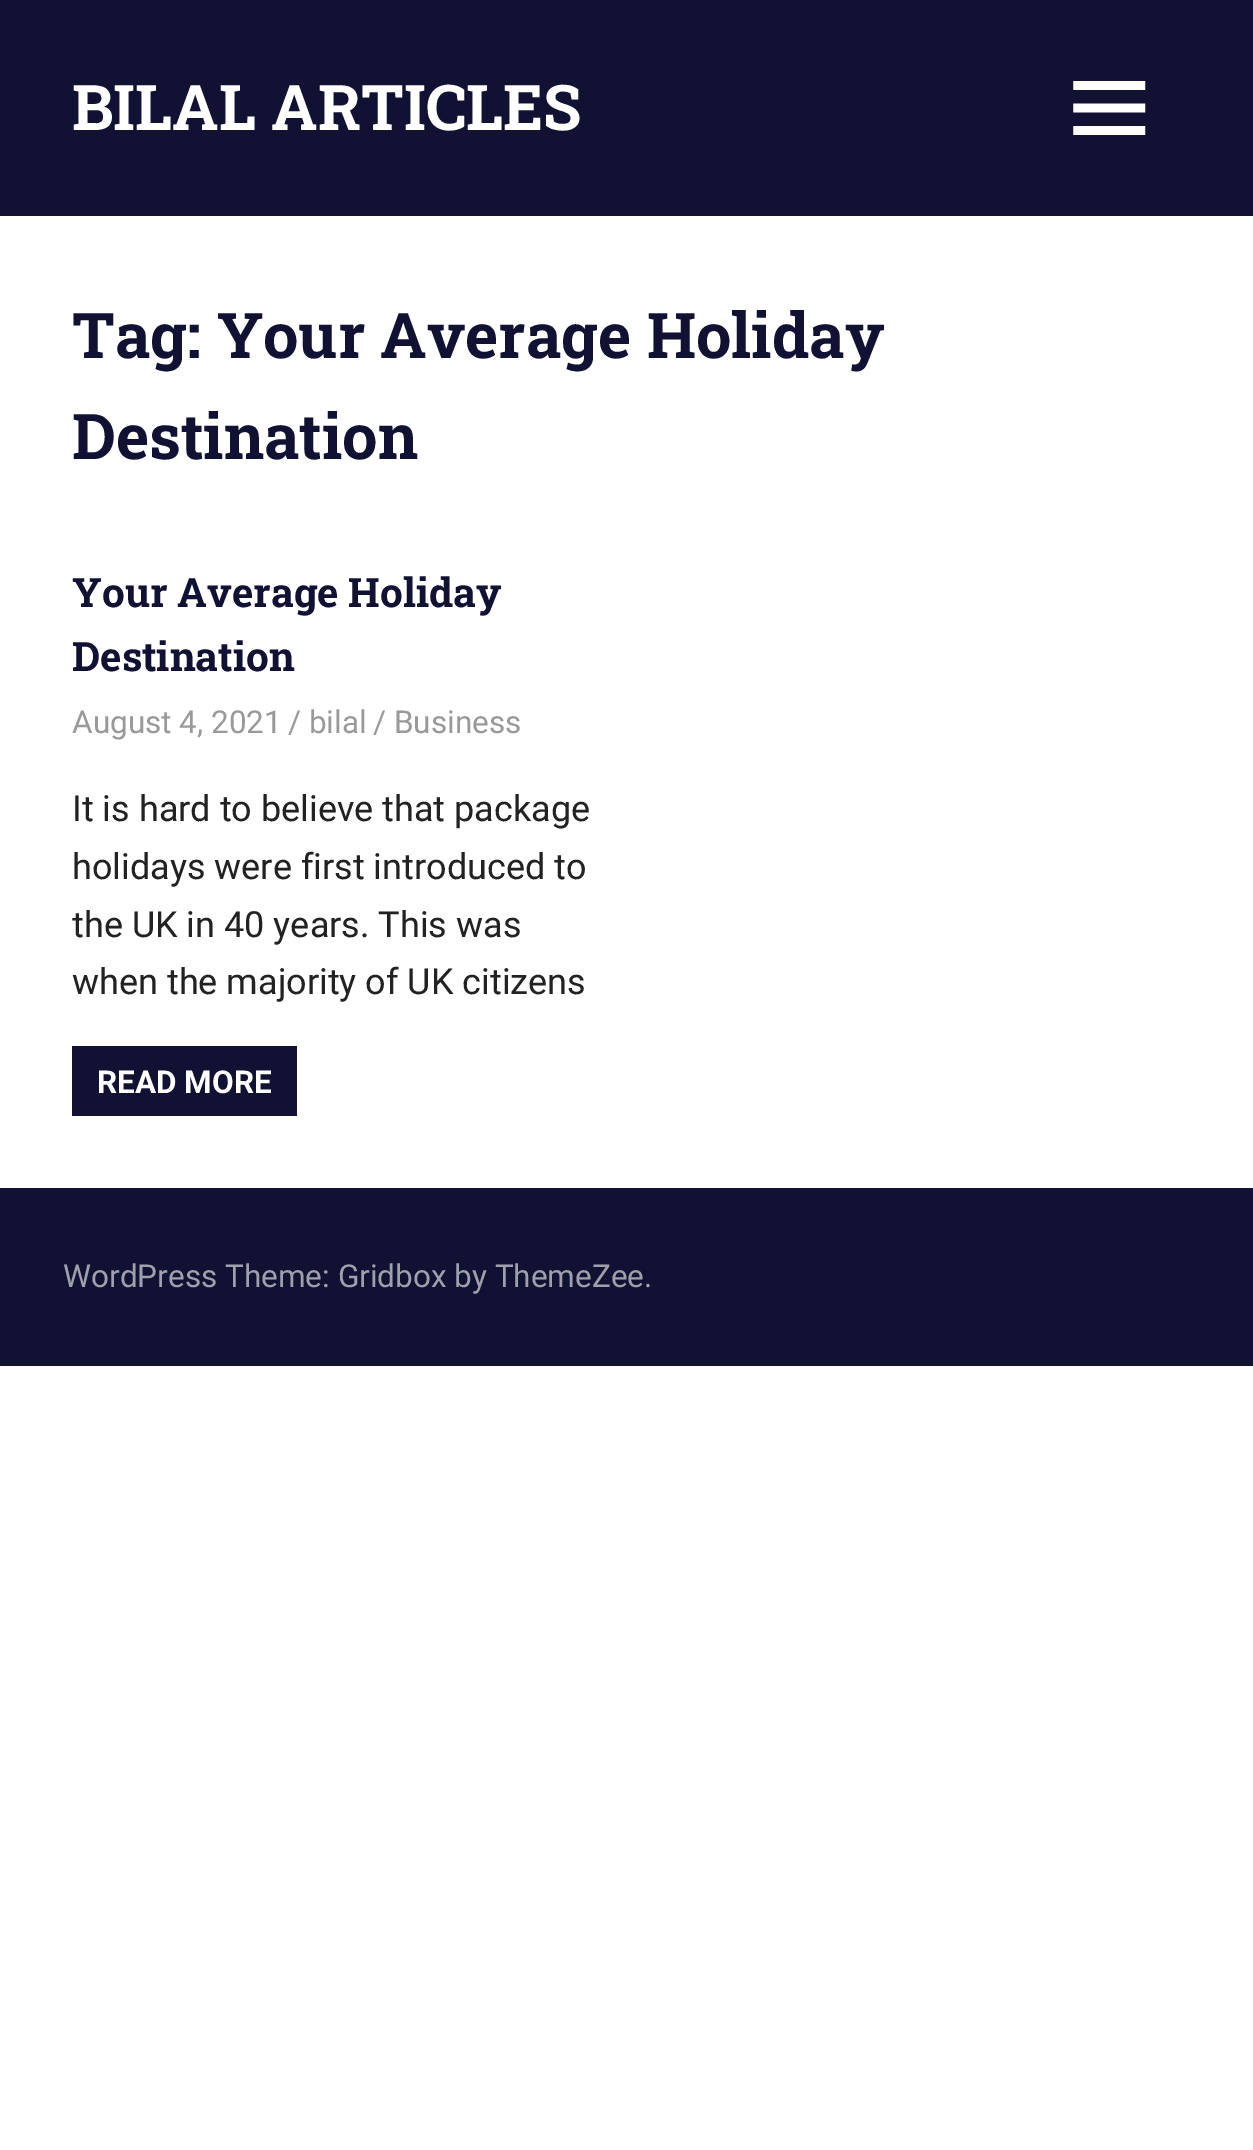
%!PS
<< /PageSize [1253 2150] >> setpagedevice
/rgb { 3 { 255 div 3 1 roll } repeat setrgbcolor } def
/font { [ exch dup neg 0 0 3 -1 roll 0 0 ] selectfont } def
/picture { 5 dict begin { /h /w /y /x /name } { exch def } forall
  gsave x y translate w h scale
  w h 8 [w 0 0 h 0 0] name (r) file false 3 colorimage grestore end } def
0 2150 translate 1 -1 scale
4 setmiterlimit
255 255 255 rgb
0 0 1253 2150 rectfill
17 17 51 rgb
0 0 1253 216 rectfill
(img/1.rgb) 1073 81 73 54 picture
72 1046 225 70 rectfill
0 1188 1253 178 rectfill
/RobotoSlab-Bold 63 font
255 255 255 rgb
72 130 moveto (BILAL ARTICLES) show
17 17 51 rgb
72 358 moveto (Tag: Your Average Holiday) show
72 459 moveto (Destination) show
/RobotoSlab-Bold 40.5 font
72 607 moveto (Your Average Holiday) show
72 671 moveto (Destination) show
/Roboto-Regular 31.5 font
153 153 153 rgb
[
  [(August 4, 2021) 72 733]
  [(/ bilal) 288 733]
  [(/ Business) 373 733]
] { aload pop moveto show } forall
/Roboto-Regular 36 font
34 34 34 rgb
[
  [(It is hard to believe that package) 72 821]
  [(holidays were first introduced to) 72 879]
  [(the UK in 40 years. This was) 72 937]
  [(when the majority of UK citizens) 72 994]
] { aload pop moveto show } forall
/Roboto-Bold 31.5 font
255 255 255 rgb
97 1093 moveto (READ MORE) show
/Roboto-Regular 31.5 font
160 160 173 rgb
63 1287 moveto (WordPress Theme: Gridbox by ThemeZee.) show
showpage
